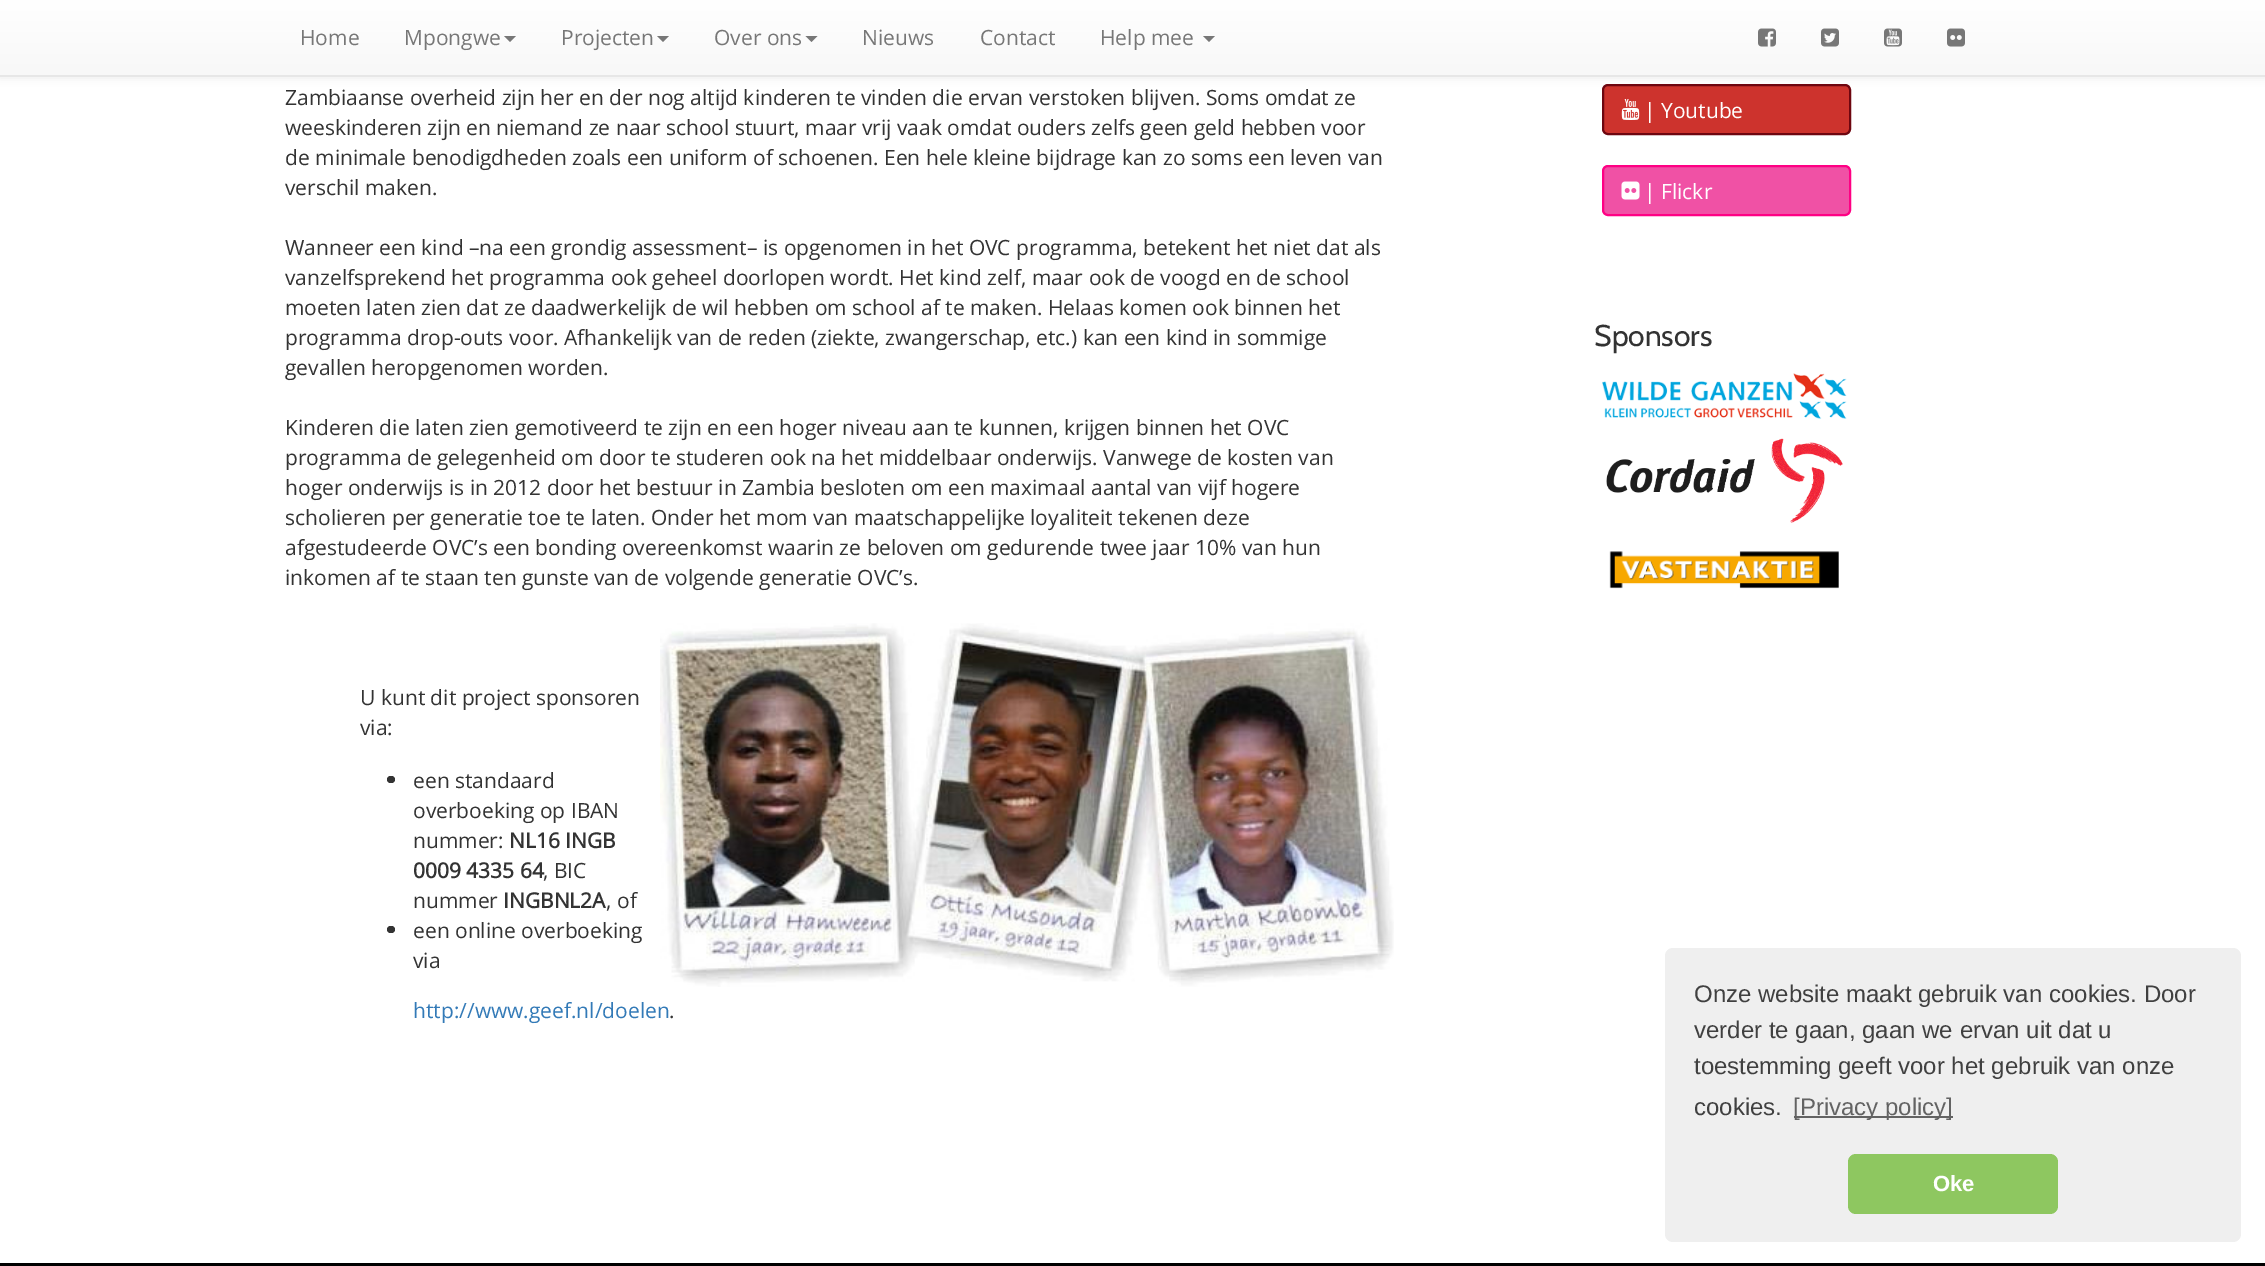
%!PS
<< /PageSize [2265 1266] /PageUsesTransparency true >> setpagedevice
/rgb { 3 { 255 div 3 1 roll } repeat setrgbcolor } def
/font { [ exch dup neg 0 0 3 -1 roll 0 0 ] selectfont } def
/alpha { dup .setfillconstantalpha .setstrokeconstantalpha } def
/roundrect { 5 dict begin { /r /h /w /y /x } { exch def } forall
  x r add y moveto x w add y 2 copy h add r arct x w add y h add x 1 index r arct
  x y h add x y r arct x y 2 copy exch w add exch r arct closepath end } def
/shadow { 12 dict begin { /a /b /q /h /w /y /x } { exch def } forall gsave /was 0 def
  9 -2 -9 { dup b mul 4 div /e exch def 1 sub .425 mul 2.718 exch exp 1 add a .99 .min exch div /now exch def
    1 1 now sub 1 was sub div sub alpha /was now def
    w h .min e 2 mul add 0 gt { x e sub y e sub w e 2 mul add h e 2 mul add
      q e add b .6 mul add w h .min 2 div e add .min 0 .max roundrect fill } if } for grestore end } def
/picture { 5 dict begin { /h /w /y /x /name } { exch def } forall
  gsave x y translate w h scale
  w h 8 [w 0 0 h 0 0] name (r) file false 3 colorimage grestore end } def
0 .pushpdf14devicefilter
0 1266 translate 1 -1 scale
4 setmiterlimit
255 255 255 rgb
0 0 2265 1266 rectfill
205 51 45 rgb
1603 85 247 49 5 roundrect gsave fill grestore
110 6 16 rgb
2 setlinewidth
stroke
0 0 0 rgb
0 2 2265 76 0 4 0.07 shadow
gsave 0 0 moveto 2265 0 lineto 2265 75 lineto 0 75 lineto closepath clip newpath
<< /ShadingType 2 /ColorSpace /DeviceRGB /Coords [1133 0 1133 75] /Extend [true true] /Function << /FunctionType 2 /Domain [0 1] /C0 [1 1 1] /C1 [0.973 0.973 0.973] /N 1 >> >> shfill grestore
231 231 231 rgb
0 75 2265 2 rectfill
119 119 119 rgb
504 36 moveto 516 36 lineto 510 42 lineto closepath fill
657 36 moveto 669 36 lineto 663 42 lineto closepath fill
805.5 36 moveto 817.5 36 lineto 811.5 42 lineto closepath fill
1203 36 moveto 1215 36 lineto 1209 42 lineto closepath fill
(img/1.rgb) 1758 28 18 19 picture
(img/2.rgb) 1821 28 18 19 picture
(img/3.rgb) 1884 28 18 19 picture
(img/4.rgb) 1947 28 18 19 picture
51 51 51 rgb
387 776 8 7 3.5 roundrect fill
387 926 8 7 3.5 roundrect fill
(img/5.rgb) 660 623 734 364 picture
(img/6.rgb) 1621 99 19 21 picture
240 81 165 rgb
1603 166 247 49 5 roundrect gsave fill grestore
255 0 132 rgb
stroke
(img/7.rgb) 1621 181 19 19 picture
(img/8.rgb) 1602 373 245 46 picture
(img/9.rgb) 1606 438 237 85 picture
(img/10.rgb) 1609 551 230 38 picture
239 239 239 rgb
1665 948 576 294 8 roundrect fill
99 99 99 rgb
1794 1116 159 2 rectfill
142 199 96 rgb
1848 1154 210 60 8 roundrect fill
0 0 0 rgb
0 1263 2265 3 rectfill
/OpenSans-Regular 21 font
119 119 119 rgb
[
  [(Home) 300 45]
  [(Mpongwe) 404 45]
  [(Projecten) 561 45]
  [(Over ons) 714 45]
  [(Nieuws) 862 45]
  [(Contact) 980 45]
  [(Help mee) 1100 45]
] { aload pop moveto show } forall
51 51 51 rgb
[
  [(Zambiaanse overheid zijn her en der nog altijd kinderen te vinden die ervan verstoken blijven. Soms omdat ze) 285 105]
  [(weeskinderen zijn en niemand ze naar school stuurt, maar vrij vaak omdat ouders zelfs geen geld hebben voor) 285 135]
  [(de minimale benodigdheden zoals een uniform of schoenen. Een hele kleine bijdrage kan zo soms een leven van) 285 165]
  [(verschil maken.) 285 195]
  [(Wanneer een kind –na een grondig assessment– is opgenomen in het OVC programma, betekent het niet dat als) 285 255]
  [(vanzelfsprekend het programma ook geheel doorlopen wordt. Het kind zelf, maar ook de voogd en de school) 285 285]
  [(moeten laten zien dat ze daadwerkelijk de wil hebben om school af te maken. Helaas komen ook binnen het) 285 315]
  [(programma drop-outs voor. Afhankelijk van de reden \(ziekte, zwangerschap, etc.\) kan een kind in sommige) 285 345]
  [(gevallen heropgenomen worden.) 285 375]
  [(Kinderen die laten zien gemotiveerd te zijn en een hoger niveau aan te kunnen, krijgen binnen het OVC) 285 435]
  [(programma de gelegenheid om door te studeren ook na het middelbaar onderwijs. Vanwege de kosten van) 285 465]
  [(hoger onderwijs is in 2012 door het bestuur in Zambia besloten om een maximaal aantal van vijf hogere) 285 495]
  [(scholieren per generatie toe te laten. Onder het mom van maatschappelijke loyaliteit tekenen deze) 285 525]
  [(afgestudeerde OVC’s een bonding overeenkomst waarin ze beloven om gedurende twee jaar 10% van hun) 285 555]
  [(inkomen af te staan ten gunste van de volgende generatie OVC’s.) 285 585]
  [(U kunt dit project sponsoren) 360 705]
  [(via:) 360 735]
  [(een standaard) 413 788]
  [(overboeking op IBAN) 413 818]
  [(nummer:) 413 848]
] { aload pop moveto show } forall
/OpenSans-Bold 21 font
509 848 moveto (NL16 INGB) show
413 878 moveto (0009 4335 64) show
/OpenSans-Regular 21 font
543 878 moveto (, BIC) show
413 908 moveto (nummer) show
/OpenSans-Bold 21 font
503 908 moveto (INGBNL2A) show
/OpenSans-Regular 21 font
[
  [(, of) 606 908]
  [(een online overboeking) 413 938]
  [(via) 413 968]
] { aload pop moveto show } forall
51 122 183 rgb
413 1018 moveto (http://www.geef.nl/doelen) show
51 51 51 rgb
669 1018 moveto (.) show
255 255 255 rgb
1644 118 moveto (| Youtube) show
1644 199 moveto (| Flickr) show
/Cabin-Regular 30 font
51 51 51 rgb
1594 346 moveto (Sponsors) show
/LiberationSans-Regular 24 font
64 64 64 rgb
[
  [(Onze website maakt gebruik van cookies. Door) 1694 1002]
  [(verder te gaan, gaan we ervan uit dat u) 1694 1038]
  [(toestemming geeft voor het gebruik van onze) 1694 1074]
  [(cookies.) 1694 1115]
] { aload pop moveto show } forall
99 99 99 rgb
1793 1115 moveto ([Privacy policy]) show
/LiberationSans-Bold 22 font
255 255 255 rgb
1933 1191 moveto (Oke) show
.poppdf14devicefilter showpage
